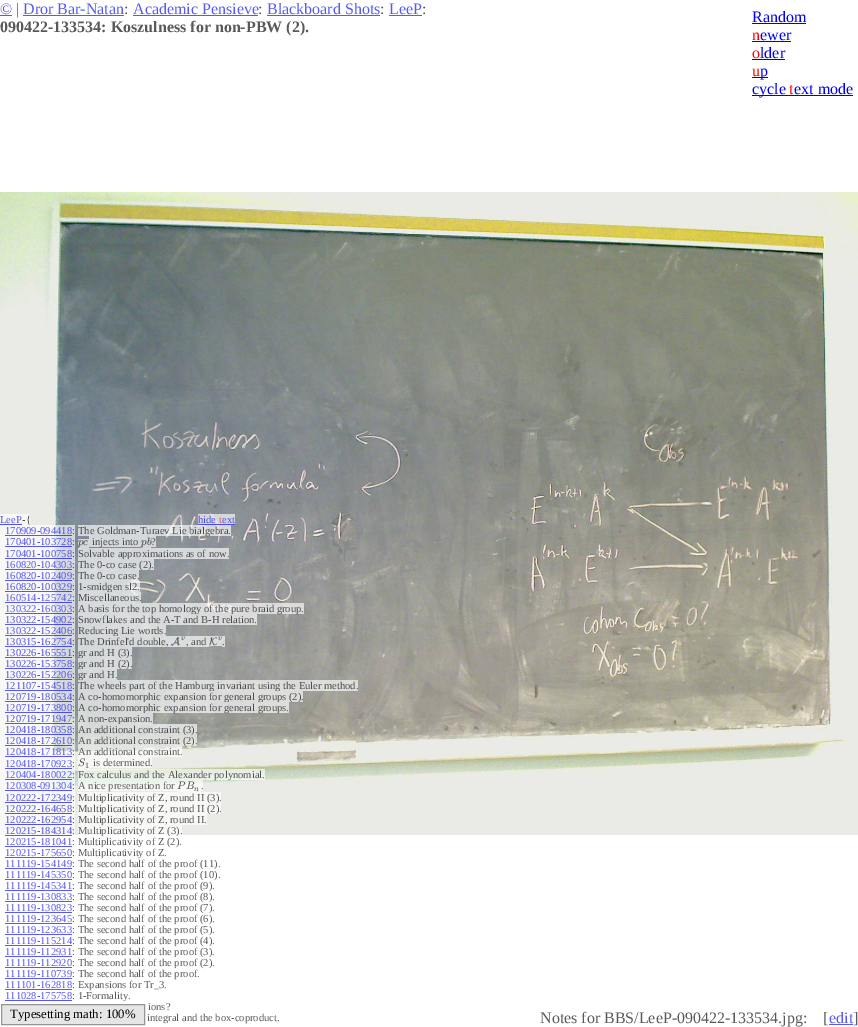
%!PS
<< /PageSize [858 1027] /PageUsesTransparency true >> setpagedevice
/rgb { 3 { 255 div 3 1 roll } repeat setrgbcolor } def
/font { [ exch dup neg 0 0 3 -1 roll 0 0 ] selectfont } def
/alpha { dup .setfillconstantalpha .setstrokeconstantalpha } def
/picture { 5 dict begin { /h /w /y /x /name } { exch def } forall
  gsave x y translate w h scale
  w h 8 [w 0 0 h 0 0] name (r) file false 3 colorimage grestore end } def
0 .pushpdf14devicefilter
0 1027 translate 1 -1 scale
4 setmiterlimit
255 255 255 rgb
0 0 858 1027 rectfill
[
  [0 15 12 1 89 89 244]
  [23 15 101 1 89 89 244]
  [133 15 125 1 89 89 244]
  [267 15 113 1 89 89 244]
  [389 15 33 1 89 89 244]
  [752 23 54 1 0 0 238]
  [752 41 39 1 0 0 238]
  [752 59 33 1 0 0 238]
  [752 77 16 1 0 0 238]
  [752 95 101 1 0 0 238]
] { aload pop rgb rectfill } forall
(img/1.rgb) 0 192 858 643 picture
[
  [0 514 22 10 248 248 246]
  [22 514 8 11 248 248 246]
  [0 524 22 1 82 82 235]
] { aload pop rgb rectfill } forall
0.65 alpha
[
  [198 514 21 11 255 255 255]
  [219 514 3 11 255 255 255]
  [222 514 13 11 255 255 255]
  [198 524 21 1 0 0 238]
  [219 524 3 1 0 0 238]
  [222 524 13 1 0 0 238]
  [0 525 75 11 255 255 255]
  [5 535 67 1 0 0 238]
  [78 525 153 11 255 255 255]
  [0 536 75 12 255 255 255]
  [5 546 67 1 0 0 238]
  [78 539 11 9 255 255 255]
  [0 548 75 11 255 255 255]
  [5 558 67 1 0 0 238]
  [78 548 151 11 255 255 255]
  [0 559 75 11 255 255 255]
  [5 569 67 1 0 0 238]
  [0 570 75 11 255 255 255]
  [5 580 67 1 0 0 238]
  [0 581 75 11 255 255 255]
  [5 591 67 1 0 0 238]
  [78 581 62 11 255 255 255]
  [0 592 75 11 255 255 255]
  [5 602 67 1 0 0 238]
  [0 603 75 11 255 255 255]
  [5 613 67 1 0 0 238]
  [78 603 226 11 255 255 255]
  [0 614 75 11 255 255 255]
  [5 624 67 1 0 0 238]
  [0 625 75 11 255 255 255]
  [5 635 67 1 0 0 238]
  [78 625 88 11 255 255 255]
  [0 636 75 11 255 255 255]
  [5 646 67 1 0 0 238]
  [171 636 15 11 255 255 255]
  [186 636 23 11 255 255 255]
  [209 636 13 10 255 255 255]
  [222 636 3 11 255 255 255]
  [0 647 75 11 255 255 255]
  [5 657 67 1 0 0 238]
  [78 647 54 11 255 255 255]
  [0 658 75 11 255 255 255]
  [5 668 67 1 0 0 238]
  [0 669 75 11 255 255 255]
  [5 679 67 1 0 0 238]
  [0 680 75 11 255 255 255]
  [5 690 67 1 0 0 238]
  [0 691 75 11 255 255 255]
  [5 701 67 1 0 0 238]
  [0 702 75 11 255 255 255]
  [5 712 67 1 0 0 238]
  [0 713 75 11 255 255 255]
  [5 723 67 1 0 0 238]
  [0 724 75 11 255 255 255]
  [5 734 67 1 0 0 238]
  [0 735 75 11 255 255 255]
  [5 745 67 1 0 0 238]
  [0 746 75 11 255 255 255]
  [5 756 67 1 0 0 238]
  [0 757 75 12 255 255 255]
  [5 768 67 1 0 0 238]
  [78 757 12 12 255 255 255]
  [90 757 62 11 255 255 255]
  [0 769 75 11 255 255 255]
  [5 779 67 1 0 0 238]
  [78 769 187 11 255 255 255]
  [0 780 75 12 255 255 255]
] { aload pop rgb rectfill } forall
1 alpha
[
  [5 790 67 1 87 87 241]
  [0 792 75 33 248 248 246]
  [5 802 67 1 82 82 235]
  [78 792 143 11 248 248 246]
  [5 813 67 1 82 82 235]
  [5 824 67 1 82 82 235]
] { aload pop rgb rectfill } forall
0.65 alpha
[
  [0 825 75 10 255 255 255]
] { aload pop rgb rectfill } forall
1 alpha
[
  [5 835 67 1 89 89 244]
  [5 846 67 1 89 89 244]
  [5 857 67 1 89 89 244]
  [5 868 67 1 89 89 244]
  [5 879 67 1 89 89 244]
  [5 890 67 1 89 89 244]
  [5 901 67 1 89 89 244]
  [5 912 67 1 89 89 244]
  [5 923 67 1 89 89 244]
  [5 934 67 1 89 89 244]
  [5 945 67 1 89 89 244]
  [5 956 67 1 89 89 244]
  [5 967 67 1 89 89 244]
  [5 978 67 1 89 89 244]
  [5 989 67 1 89 89 244]
  [5 1000 67 1 89 89 244]
] { aload pop rgb rectfill } forall
230 230 230 rgb
1.5 1004.5 moveto 144.5 1004.5 lineto 144.5 1024.5 lineto 1.5 1024.5 lineto closepath gsave fill grestore
149 149 149 rgb
stroke
89 89 244 rgb
829 1024 24 1 rectfill
/LiberationSerif-Regular 16 font
0 14 moveto (©) show
89 89 89 rgb
16 14 moveto (|) show
89 89 244 rgb
23 14 moveto (Dror Bar-Natan) show
89 89 89 rgb
124 14 moveto (:) show
89 89 244 rgb
133 14 moveto (Academic Pensieve) show
89 89 89 rgb
258 14 moveto (:) show
89 89 244 rgb
267 14 moveto (Blackboard Shots) show
89 89 89 rgb
380 14 moveto (:) show
89 89 244 rgb
389 14 moveto (LeeP) show
89 89 89 rgb
422 14 moveto (:) show
/LiberationSerif-Bold 16 font
0 32 moveto (090422-133534: Koszulness for non-PBW \(2\).) show
/LiberationSerif-Regular 16 font
0 0 238 rgb
752 22 moveto (Random) show
255 0 0 rgb
752 40 moveto (n) show
0 0 238 rgb
760 40 moveto (ewer) show
255 0 0 rgb
752 58 moveto (o) show
0 0 238 rgb
760 58 moveto (lder) show
255 0 0 rgb
752 76 moveto (u) show
0 0 238 rgb
760 76 moveto (p) show
752 94 moveto (cycle) show
255 0 0 rgb
789 94 moveto (t) show
0 0 238 rgb
794 94 moveto (ext mode) show
/LiberationSerif-Regular 10.55 font
82 82 235 rgb
0 523 moveto (LeeP) show
82 82 81 rgb
22 523 moveto (-{) show
75 76 231 rgb
198 523 moveto (hide) show
240 76 76 rgb
219 523 moveto (t) show
75 76 231 rgb
222 523 moveto (ext) show
82 82 235 rgb
5 534 moveto (170909-094418) show
74 75 77 rgb
72 534 moveto (:) show
78 534 moveto (The Goldman-Turaev Lie bialgebra.) show
82 82 235 rgb
5 545 moveto (170401-103728) show
74 75 77 rgb
72 545 moveto (:) show
0.65 alpha
[
  [89 536 52 11 255 255 255]
  [141 536 10 12 255 255 255]
  [151 536 5 11 255 255 255]
] { aload pop rgb rectfill } forall
/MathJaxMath-Italic 11 font
1 alpha
74 75 77 rgb
78 545 moveto (p) show
83 545 moveto (c) show
/LiberationSerif-Regular 10.55 font
92 545 moveto (injects into) show
151 545 moveto (?) show
/MathJaxMath-Italic 11 font
141 545 moveto (pb) show
/LiberationSerif-Regular 10.55 font
82 82 235 rgb
5 557 moveto (170401-100758) show
74 75 77 rgb
72 557 moveto (:) show
78 557 moveto (Solvable approximations as of now.) show
89 89 244 rgb
5 568 moveto (160820-104303) show
74 75 77 rgb
72 568 moveto (:) show
0.65 alpha
255 255 255 rgb
78 559 76 11 rectfill
1 alpha
74 75 77 rgb
78 568 moveto (The 0-co case \(2\).) show
82 82 235 rgb
5 579 moveto (160820-102409) show
74 75 77 rgb
72 579 moveto (:) show
0.65 alpha
255 255 255 rgb
78 570 61 11 rectfill
1 alpha
74 75 77 rgb
78 579 moveto (The 0-co case.) show
82 82 235 rgb
5 590 moveto (160820-100329) show
74 75 77 rgb
72 590 moveto (:) show
78 590 moveto (1-smidgen sl2.) show
89 89 244 rgb
5 601 moveto (160514-125742) show
74 75 77 rgb
72 601 moveto (:) show
0.65 alpha
255 255 255 rgb
78 592 63 11 rectfill
1 alpha
74 75 77 rgb
78 601 moveto (Miscellaneous.) show
89 89 244 rgb
5 612 moveto (130322-160303) show
74 75 77 rgb
72 612 moveto (:) show
78 612 moveto (A basis for the top homology of the pure braid group.) show
82 82 235 rgb
5 623 moveto (130322-154902) show
74 75 77 rgb
72 623 moveto (:) show
0.65 alpha
255 255 255 rgb
78 614 179 11 rectfill
1 alpha
74 75 77 rgb
78 623 moveto (Snowflakes and the A-T and B-H relation.) show
82 82 235 rgb
5 634 moveto (130322-152406) show
74 75 77 rgb
72 634 moveto (:) show
78 634 moveto (Reducing Lie words.) show
82 82 235 rgb
5 645 moveto (130315-162754) show
74 75 77 rgb
72 645 moveto (:) show
0.65 alpha
255 255 255 rgb
78 636 93 11 rectfill
1 alpha
74 75 77 rgb
78 645 moveto (The Drinfel'd double,) show
/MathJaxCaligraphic-Regular 11 font
171 645 moveto (A) show
/MathJaxMath-Italic 8 font
181 640 moveto (v) show
/LiberationSerif-Regular 10.55 font
82 82 81 rgb
186 645 moveto (, and) show
/MathJaxCaligraphic-Regular 11 font
209 645 moveto (K) show
/MathJaxMath-Italic 8 font
74 75 77 rgb
218 640 moveto (v) show
/LiberationSerif-Regular 10.55 font
53 53 52 rgb
222 645 moveto (.) show
82 82 235 rgb
5 656 moveto (130226-165551) show
74 75 77 rgb
72 656 moveto (:) show
78 656 moveto (gr and H \(3\).) show
82 82 235 rgb
5 667 moveto (130226-153758) show
74 75 77 rgb
72 667 moveto (:) show
0.65 alpha
255 255 255 rgb
78 658 54 11 rectfill
1 alpha
74 75 77 rgb
78 667 moveto (gr and H \(2\).) show
82 82 235 rgb
5 678 moveto (130226-152206) show
74 75 77 rgb
72 678 moveto (:) show
0.65 alpha
255 255 255 rgb
78 669 39 11 rectfill
1 alpha
74 75 77 rgb
78 678 moveto (gr and H.) show
82 82 235 rgb
5 689 moveto (121107-154518) show
74 75 77 rgb
72 689 moveto (:) show
0.65 alpha
255 255 255 rgb
78 680 280 11 rectfill
1 alpha
74 75 77 rgb
78 689 moveto (The wheels part of the Hamburg invariant using the Euler method.) show
82 82 235 rgb
5 700 moveto (120719-180534) show
74 75 77 rgb
72 700 moveto (:) show
0.65 alpha
255 255 255 rgb
78 691 225 11 rectfill
1 alpha
74 75 77 rgb
78 700 moveto (A co-homomorphic expansion for general groups \(2\).) show
82 82 235 rgb
5 711 moveto (120719-173800) show
74 75 77 rgb
72 711 moveto (:) show
0.65 alpha
255 255 255 rgb
78 702 211 11 rectfill
1 alpha
74 75 77 rgb
78 711 moveto (A co-homomorphic expansion for general groups.) show
82 82 235 rgb
5 722 moveto (120719-171947) show
74 75 77 rgb
72 722 moveto (:) show
0.65 alpha
255 255 255 rgb
78 713 75 11 rectfill
1 alpha
74 75 77 rgb
78 722 moveto (A non-expansion.) show
82 82 235 rgb
5 733 moveto (120418-180358) show
74 75 77 rgb
72 733 moveto (:) show
0.65 alpha
255 255 255 rgb
78 724 119 11 rectfill
1 alpha
74 75 77 rgb
78 733 moveto (An additional constraint \(3\).) show
82 82 235 rgb
5 744 moveto (120418-172610) show
82 82 81 rgb
72 744 moveto (:) show
0.65 alpha
255 255 255 rgb
78 735 119 11 rectfill
1 alpha
82 82 81 rgb
78 744 moveto (An additional constraint \(2\).) show
89 89 244 rgb
5 755 moveto (120418-171813) show
82 82 81 rgb
72 755 moveto (:) show
0.65 alpha
255 255 255 rgb
78 746 104 11 rectfill
1 alpha
89 89 89 rgb
78 755 moveto (An additional constraint.) show
89 89 244 rgb
5 767 moveto (120418-170923) show
89 89 89 rgb
72 767 moveto (:) show
/MathJaxMath-Italic 11 font
78 766 moveto (S) show
/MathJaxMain-Regular 8 font
85 768 moveto (1) show
/LiberationSerif-Regular 10.55 font
93 766 moveto (is determined.) show
89 89 244 rgb
5 778 moveto (120404-180022) show
82 82 81 rgb
72 778 moveto (:) show
78 778 moveto (Fox calculus and the Alexander polynomial.) show
89 89 244 rgb
5 789 moveto (120308-091304) show
89 89 89 rgb
72 789 moveto (:) show
0.65 alpha
[
  [78 780 99 11 255 255 255]
  [177 780 24 12 255 255 255]
  [201 780 2 11 255 255 255]
] { aload pop rgb rectfill } forall
1 alpha
89 89 89 rgb
78 789 moveto (A nice presentation for) show
/MathJaxMath-Italic 11 font
177 789 moveto (P) show
186 789 moveto (B) show
/MathJaxMath-Italic 8 font
82 82 81 rgb
194 791 moveto (n) show
/LiberationSerif-Regular 10.55 font
201 789 moveto (.) show
82 82 235 rgb
5 801 moveto (120222-172349) show
82 82 81 rgb
72 801 moveto (:) show
78 801 moveto (Multiplicativity of Z, round II \(3\).) show
82 82 235 rgb
5 812 moveto (120222-164658) show
82 82 81 rgb
72 812 moveto (:) show
0.65 alpha
255 255 255 rgb
78 803 143 11 rectfill
1 alpha
82 82 81 rgb
78 812 moveto (Multiplicativity of Z, round II \(2\).) show
82 82 235 rgb
5 823 moveto (120222-162954) show
82 82 81 rgb
72 823 moveto (:) show
0.65 alpha
255 255 255 rgb
78 814 129 11 rectfill
1 alpha
82 82 81 rgb
78 823 moveto (Multiplicativity of Z, round II.) show
82 82 235 rgb
5 834 moveto (120215-184314) show
82 82 81 rgb
72 834 moveto (:) show
0.65 alpha
255 255 255 rgb
78 825 104 10 rectfill
1 alpha
89 89 89 rgb
78 834 moveto (Multiplicativity of Z \(3\).) show
0.65 alpha
255 255 255 rgb
101 836 76 1 rectfill
1 alpha
89 89 244 rgb
5 845 moveto (120215-181041) show
89 89 89 rgb
72 845 moveto (: Multiplicativity of Z \(2\).) show
0.65 alpha
255 255 255 rgb
101 847 40 1 rectfill
1 alpha
89 89 244 rgb
5 856 moveto (120215-175650) show
89 89 89 rgb
72 856 moveto (: Multiplicativity of Z.) show
0.65 alpha
255 255 255 rgb
101 858 40 1 rectfill
1 alpha
89 89 244 rgb
5 867 moveto (111119-154149) show
89 89 89 rgb
72 867 moveto (: The second half of the proof \(11\).) show
0.65 alpha
255 255 255 rgb
174 869 41 1 rectfill
1 alpha
89 89 244 rgb
5 878 moveto (111119-145350) show
89 89 89 rgb
72 878 moveto (: The second half of the proof \(10\).) show
0.65 alpha
255 255 255 rgb
174 880 41 1 rectfill
1 alpha
89 89 244 rgb
5 889 moveto (111119-145341) show
89 89 89 rgb
72 889 moveto (: The second half of the proof \(9\).) show
0.65 alpha
255 255 255 rgb
174 891 36 1 rectfill
1 alpha
89 89 244 rgb
5 900 moveto (111119-130833) show
89 89 89 rgb
72 900 moveto (: The second half of the proof \(8\).) show
0.65 alpha
255 255 255 rgb
174 902 36 1 rectfill
1 alpha
89 89 244 rgb
5 911 moveto (111119-130823) show
89 89 89 rgb
72 911 moveto (: The second half of the proof \(7\).) show
0.65 alpha
255 255 255 rgb
174 913 36 1 rectfill
1 alpha
89 89 244 rgb
5 922 moveto (111119-123645) show
89 89 89 rgb
72 922 moveto (: The second half of the proof \(6\).) show
0.65 alpha
255 255 255 rgb
174 924 36 1 rectfill
1 alpha
89 89 244 rgb
5 933 moveto (111119-123633) show
89 89 89 rgb
72 933 moveto (: The second half of the proof \(5\).) show
0.65 alpha
255 255 255 rgb
174 935 36 1 rectfill
1 alpha
89 89 244 rgb
5 944 moveto (111119-115214) show
89 89 89 rgb
72 944 moveto (: The second half of the proof \(4\).) show
0.65 alpha
255 255 255 rgb
174 946 36 1 rectfill
1 alpha
89 89 244 rgb
5 955 moveto (111119-112931) show
89 89 89 rgb
72 955 moveto (: The second half of the proof \(3\).) show
0.65 alpha
255 255 255 rgb
174 957 36 1 rectfill
1 alpha
89 89 244 rgb
5 966 moveto (111119-112920) show
89 89 89 rgb
72 966 moveto (: The second half of the proof \(2\).) show
0.65 alpha
255 255 255 rgb
174 968 4 1 rectfill
1 alpha
89 89 244 rgb
5 977 moveto (111119-110739) show
89 89 89 rgb
72 977 moveto (: The second half of the proof.) show
89 89 244 rgb
5 988 moveto (111101-162818) show
89 89 89 rgb
72 988 moveto (: Expansions for Tr_3.) show
0.65 alpha
255 255 255 rgb
89 990 3 1 rectfill
1 alpha
89 89 244 rgb
5 999 moveto (111028-175758) show
89 89 89 rgb
72 999 moveto (: 1-Formality.) show
148 1010 moveto (ions?) show
0.65 alpha
255 255 255 rgb
123 1001 2 1 rectfill
1 alpha
89 89 89 rgb
147 1021 moveto (integral and the box-coproduct.) show
0.65 alpha
255 255 255 rgb
164 1023 3 1 rectfill
/LiberationSerif-Regular 12.75 font
1 alpha
0 0 0 rgb
10 1018 moveto (Typesetting math: 100%) show
/LiberationSerif-Regular 16 font
89 89 89 rgb
540 1023 moveto (Notes for BBS/LeeP-090422-133534.jpg:    [) show
89 89 244 rgb
829 1023 moveto (edit) show
89 89 89 rgb
853 1023 moveto (]) show
.poppdf14devicefilter showpage
